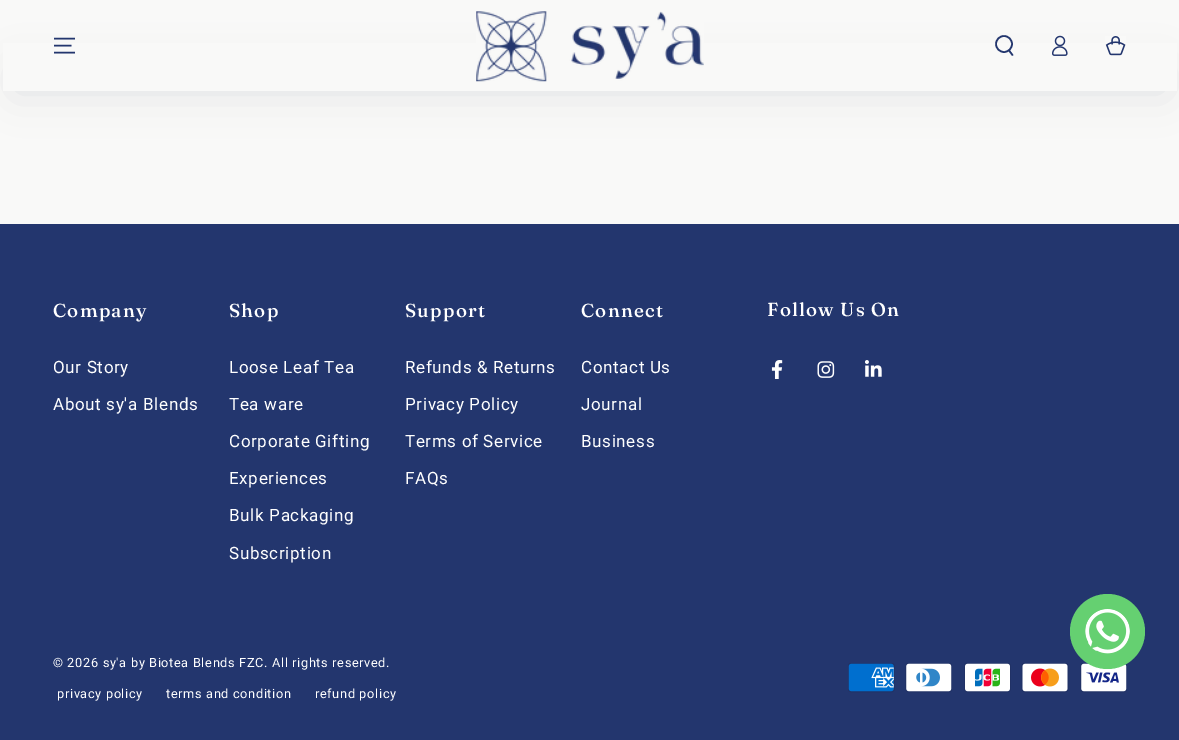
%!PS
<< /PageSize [1179 740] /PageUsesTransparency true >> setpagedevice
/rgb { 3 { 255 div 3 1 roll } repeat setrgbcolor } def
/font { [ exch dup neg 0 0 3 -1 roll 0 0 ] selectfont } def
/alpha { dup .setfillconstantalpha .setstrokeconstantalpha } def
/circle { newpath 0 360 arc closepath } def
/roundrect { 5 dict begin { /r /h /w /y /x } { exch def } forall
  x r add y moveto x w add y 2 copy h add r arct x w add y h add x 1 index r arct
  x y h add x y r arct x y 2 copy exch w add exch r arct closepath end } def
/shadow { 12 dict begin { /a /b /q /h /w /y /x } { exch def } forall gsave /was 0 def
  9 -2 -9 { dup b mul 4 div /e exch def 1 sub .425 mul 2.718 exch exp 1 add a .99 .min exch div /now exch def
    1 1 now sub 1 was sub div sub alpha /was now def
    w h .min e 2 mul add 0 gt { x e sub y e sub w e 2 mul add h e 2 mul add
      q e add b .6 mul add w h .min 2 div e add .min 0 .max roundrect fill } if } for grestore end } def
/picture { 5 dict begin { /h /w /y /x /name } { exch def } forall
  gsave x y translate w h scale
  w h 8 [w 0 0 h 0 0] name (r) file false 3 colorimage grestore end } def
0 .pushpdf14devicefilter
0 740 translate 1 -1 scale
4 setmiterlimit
249 249 248 rgb
0 0 1179 740 rectfill
105 117 140 rgb
16 70 1148 21 10.5 21 0.2 shadow
249 249 248 rgb
3 43 1174 48 rectfill
35 54 110 rgb
1.5 setlinewidth
54 52.5 moveto 75 52.5 lineto 54 45.5 moveto 71.5 45.5 lineto 54 38.5 moveto 75 38.5 lineto stroke
(img/1.rgb) 476 11 228 71 picture
1.6 setlinewidth
1004 44 8 circle stroke
1 setlinecap
1009 50.5 moveto 1012.5 55 lineto stroke
(img/2.rgb) 1052 35 16 21 picture
(img/3.rgb) 1105 36 21 20 picture
0 224 1179 516 rectfill
(img/4.rgb) 771 360 12 19 picture
(img/5.rgb) 817 361 18 17 picture
(img/6.rgb) 865 360 17 17 picture
(img/7.rgb) 848 663 47 30 picture
(img/8.rgb) 905 663 47 30 picture
(img/9.rgb) 964 663 47 30 picture
(img/10.rgb) 1021 663 48 30 picture
(img/11.rgb) 1080 663 47 30 picture
101 208 113 rgb
1107.5 631.5 37.5 circle fill
(img/12.rgb) 1085 609 45 45 picture
/Fraunces-Medium 18.75 font
255 255 255 rgb
53 317 moveto 1.25 0 (Company) ashow
/Roboto-Regular 17 font
53 373 moveto 0.65 0 (Our Story) ashow
53 410 moveto 0.65 0 (About sy'a Blends) ashow
/Fraunces-Medium 18.75 font
229 317 moveto 1.25 0 (Shop) ashow
/Roboto-Regular 17 font
229 373 moveto 0.65 0 (Loose Leaf Tea) ashow
229 410 moveto 0.65 0 (Tea ware) ashow
229 447 moveto 0.65 0 (Corporate Gifting) ashow
229 484 moveto 0.65 0 (Experiences) ashow
229 521 moveto 0.65 0 (Bulk Packaging) ashow
229 559 moveto 0.65 0 (Subscription) ashow
/Fraunces-Medium 18.75 font
405 317 moveto 1.25 0 (Support) ashow
/Roboto-Regular 17 font
405 373 moveto 0.65 0 (Refunds & Returns) ashow
405 410 moveto 0.65 0 (Privacy Policy) ashow
405 447 moveto 0.65 0 (Terms of Service) ashow
405 484 moveto 0.65 0 (FAQs) ashow
/Fraunces-Medium 18.75 font
581 317 moveto 1.25 0 (Connect) ashow
/Roboto-Regular 17 font
581 373 moveto 0.65 0 (Contact Us) ashow
581 410 moveto 0.65 0 (Journal) ashow
581 447 moveto 0.65 0 (Business) ashow
/Fraunces-Medium 18.75 font
767 316 moveto 1.25 0 (Follow Us On) ashow
/Roboto-Regular 12.75 font
53 667 moveto 0.65 0 (© 2026 sy'a by Biotea Blends FZC. All rights reserved.) ashow
57 698 moveto 0.65 0 (privacy policy) ashow
166 698 moveto 0.65 0 (terms and condition) ashow
315 698 moveto 0.65 0 (refund policy) ashow
.poppdf14devicefilter showpage
